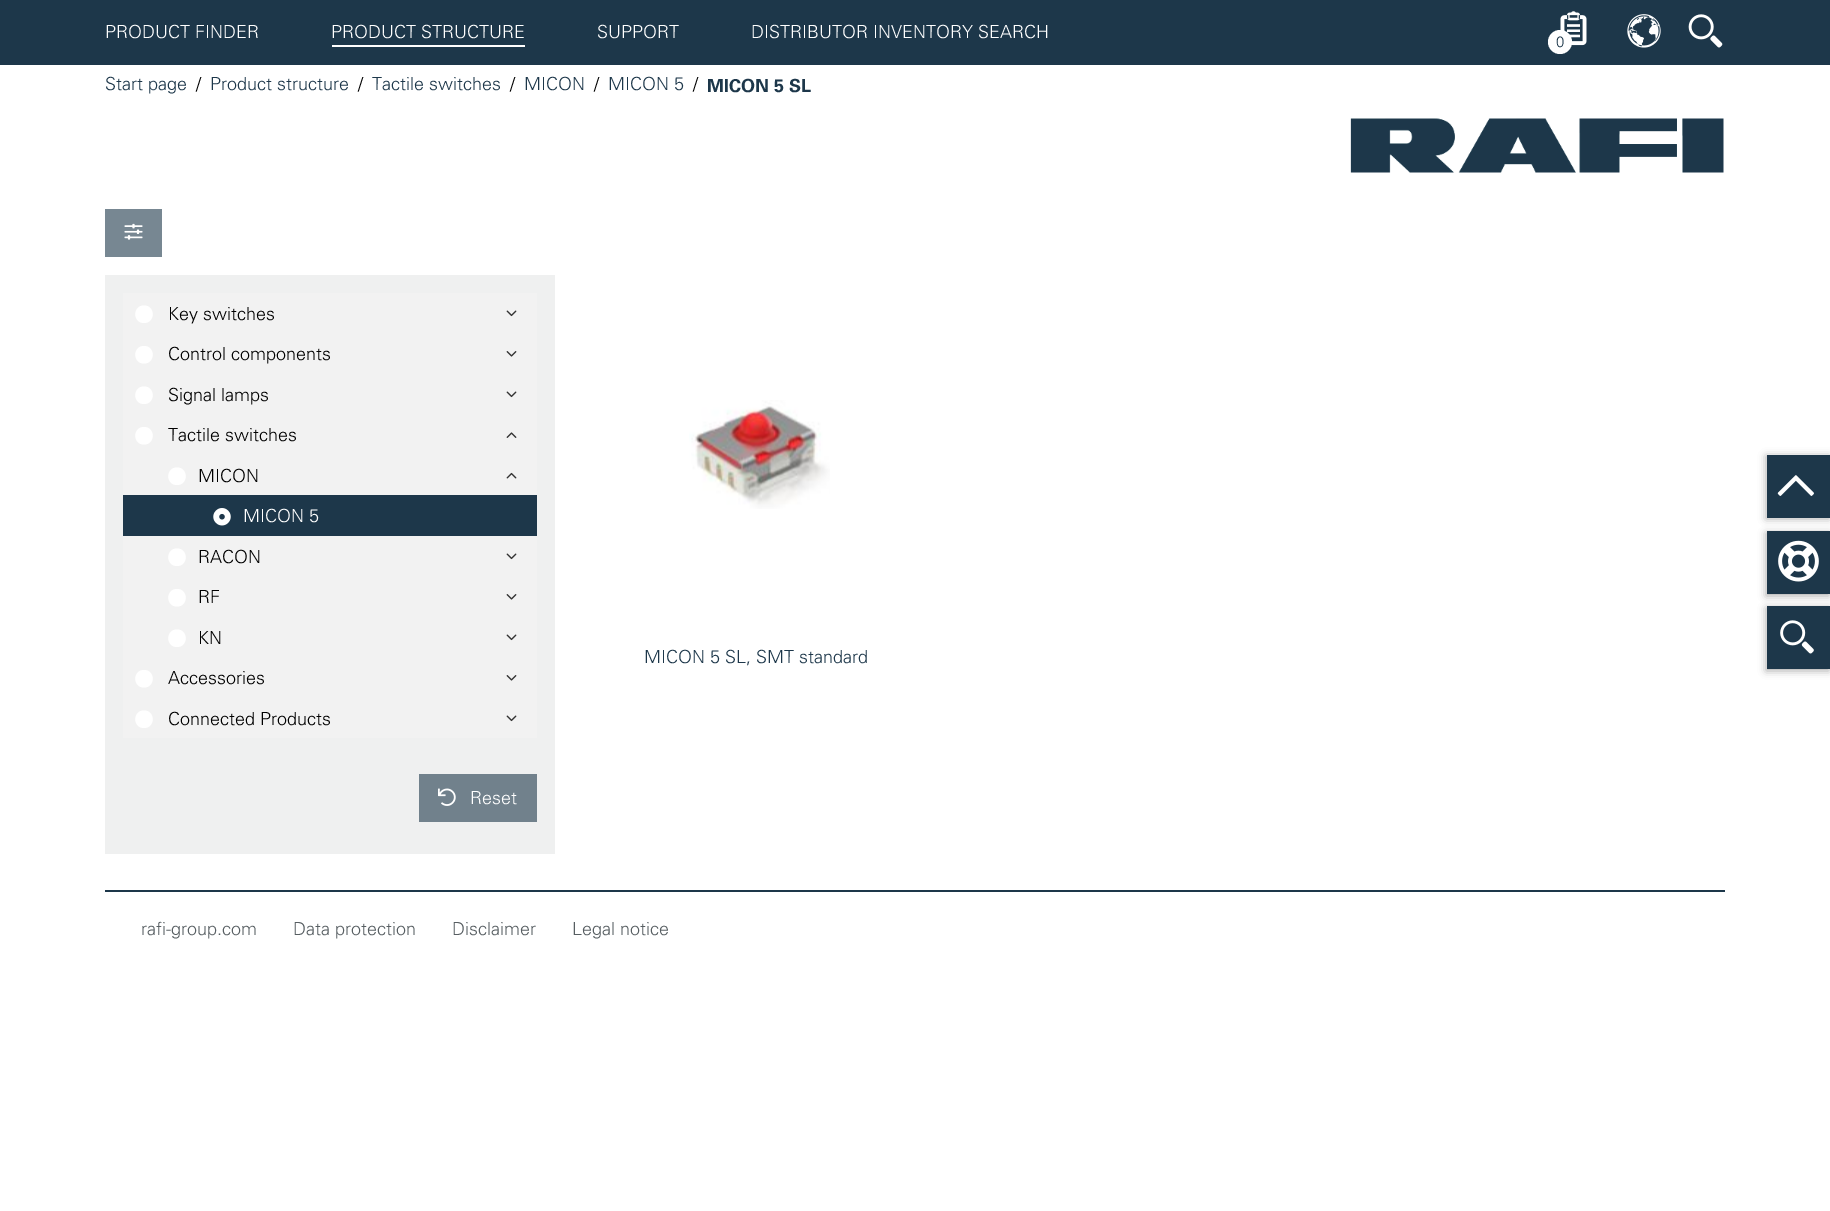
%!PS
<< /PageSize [1830 1211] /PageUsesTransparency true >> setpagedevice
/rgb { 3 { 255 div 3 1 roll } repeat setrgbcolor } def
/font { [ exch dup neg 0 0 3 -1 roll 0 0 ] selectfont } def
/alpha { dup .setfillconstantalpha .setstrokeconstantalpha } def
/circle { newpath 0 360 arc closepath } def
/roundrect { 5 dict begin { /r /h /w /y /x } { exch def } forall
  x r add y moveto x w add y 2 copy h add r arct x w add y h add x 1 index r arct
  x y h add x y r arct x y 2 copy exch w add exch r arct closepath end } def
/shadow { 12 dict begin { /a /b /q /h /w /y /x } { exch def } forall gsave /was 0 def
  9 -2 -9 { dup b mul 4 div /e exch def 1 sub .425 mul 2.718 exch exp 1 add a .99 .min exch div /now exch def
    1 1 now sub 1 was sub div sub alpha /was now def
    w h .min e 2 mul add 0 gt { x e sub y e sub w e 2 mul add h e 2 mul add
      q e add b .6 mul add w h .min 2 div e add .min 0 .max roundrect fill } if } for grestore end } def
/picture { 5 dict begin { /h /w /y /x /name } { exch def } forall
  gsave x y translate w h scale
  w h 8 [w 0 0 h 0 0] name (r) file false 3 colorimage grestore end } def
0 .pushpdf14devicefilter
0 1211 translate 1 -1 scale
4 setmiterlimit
255 255 255 rgb
0 0 1830 1211 rectfill
29 55 74 rgb
0 0 1830 65 rectfill
255 255 255 rgb
332 45 193 2 rectfill
(img/1.rgb) 1560 11 27 35 picture
1560 42 12 circle fill
(img/2.rgb) 1627 14 34 34 picture
(img/3.rgb) 1688 14 35 34 picture
(img/4.rgb) 1350 118 374 55 picture
119 135 146 rgb
105 209 57 48 rectfill
(img/5.rgb) 124 223 19 17 picture
239 240 240 rgb
105 275 450 579 rectfill
242 242 242 rgb
123 293 414 445 rectfill
255 255 255 rgb
144 305.5 moveto 132.5 305.5 132.5 323 144 323 curveto 155.5 323 155.5 305.5 144 305.5 curveto closepath fill
(img/6.rgb) 506 310 11 7 picture
144 346 moveto 132.5 346 132.5 363.5 144 363.5 curveto 155.5 363.5 155.5 346 144 346 curveto closepath fill
(img/7.rgb) 506 351 11 6 picture
144 386.5 moveto 132.5 386.5 132.5 404 144 404 curveto 155.5 404 155.5 386.5 144 386.5 curveto closepath fill
(img/6.rgb) 506 391 11 7 picture
144 427 moveto 132.5 427 132.5 444.5 144 444.5 curveto 155.5 444.5 155.5 427 144 427 curveto closepath fill
(img/8.rgb) 506 432 11 6 picture
177 467.5 moveto 165.5 467.5 165.5 485 177 485 curveto 188.5 485 188.5 467.5 177 467.5 curveto closepath fill
(img/9.rgb) 506 472 11 7 picture
29 55 74 rgb
123 495 414 41 rectfill
(img/10.rgb) 213 508 18 18 picture
255 255 255 rgb
177 548.5 moveto 165.5 548.5 165.5 566 177 566 curveto 188.5 566 188.5 548.5 177 548.5 curveto closepath fill
(img/6.rgb) 506 553 11 7 picture
177 589 moveto 165.5 589 165.5 606.5 177 606.5 curveto 188.5 606.5 188.5 589 177 589 curveto closepath fill
(img/7.rgb) 506 594 11 6 picture
177 629.5 moveto 165.5 629.5 165.5 647 177 647 curveto 188.5 647 188.5 629.5 177 629.5 curveto closepath fill
(img/6.rgb) 506 634 11 7 picture
144 670 moveto 132.5 670 132.5 687.5 144 687.5 curveto 155.5 687.5 155.5 670 144 670 curveto closepath fill
(img/7.rgb) 506 675 11 6 picture
144 710.5 moveto 132.5 710.5 132.5 728 144 728 curveto 155.5 728 155.5 710.5 144 710.5 curveto closepath fill
(img/6.rgb) 506 715 11 7 picture
113 129 140 rgb
419 774 118 48 rectfill
(img/11.rgb) 438 788 18 18 picture
(img/12.rgb) 689 400 141 109 picture
29 55 74 rgb
105 890 1620 2 rectfill
50 50 50 rgb
1766 608 63 63 0 4 0.4 shadow
29 55 74 rgb
1767 606 63 63 rectfill
50 50 50 rgb
1766 533 63 63 0 4 0.4 shadow
29 55 74 rgb
1767 531 63 63 rectfill
50 50 50 rgb
1766 456 63 63 0 4 0.4 shadow
29 55 74 rgb
1767 455 63 63 rectfill
(img/13.rgb) 1777 475 37 21 picture
(img/14.rgb) 1778 540 41 42 picture
(img/15.rgb) 1780 620 34 34 picture
/Univers-Light 18 font
255 255 255 rgb
[
  [(PRODUCT FINDER) 105 38]
  [(PRODUCT STRUCTURE) 331 38]
  [(SUPPORT) 597 38]
  [(DISTRIBUTOR INVENTORY SEARCH) 751 38]
] { aload pop moveto show } forall
/Univers-Light 15 font
29 55 74 rgb
1556 47 moveto (0) show
/Univers-Light 18 font
105 90 moveto (Start page) show
0 0 0 rgb
196 90 moveto (/) show
29 55 74 rgb
210 90 moveto (Product structure) show
0 0 0 rgb
358 90 moveto (/) show
29 55 74 rgb
372 90 moveto (Tactile switches) show
0 0 0 rgb
510 90 moveto (/) show
29 55 74 rgb
524 90 moveto (MICON) show
0 0 0 rgb
594 90 moveto (/) show
29 55 74 rgb
608 90 moveto (MICON 5) show
0 0 0 rgb
693 90 moveto (/) show
/Univers-Bold 18 font
29 55 74 rgb
707 92 moveto (MICON 5 SL) show
/Univers-Light 18 font
0 0 0 rgb
[
  [(Key switches) 168 320]
  [(Control components) 168 360]
  [(Signal lamps) 168 401]
  [(Tactile switches) 168 441]
  [(MICON) 198 482]
] { aload pop moveto show } forall
255 255 255 rgb
243 522 moveto (MICON 5) show
0 0 0 rgb
[
  [(RACON) 198 563]
  [(RF) 198 603]
  [(KN) 198 644]
  [(Accessories) 168 684]
  [(Connected Products) 168 725]
] { aload pop moveto show } forall
255 255 255 rgb
470 804 moveto (Reset) show
29 55 74 rgb
644 663 moveto (MICON 5 SL, SMT standard) show
87 94 98 rgb
[
  [(rafi-group.com) 141 935]
  [(Data protection) 293 935]
  [(Disclaimer) 452 935]
  [(Legal notice) 572 935]
] { aload pop moveto show } forall
.poppdf14devicefilter showpage
